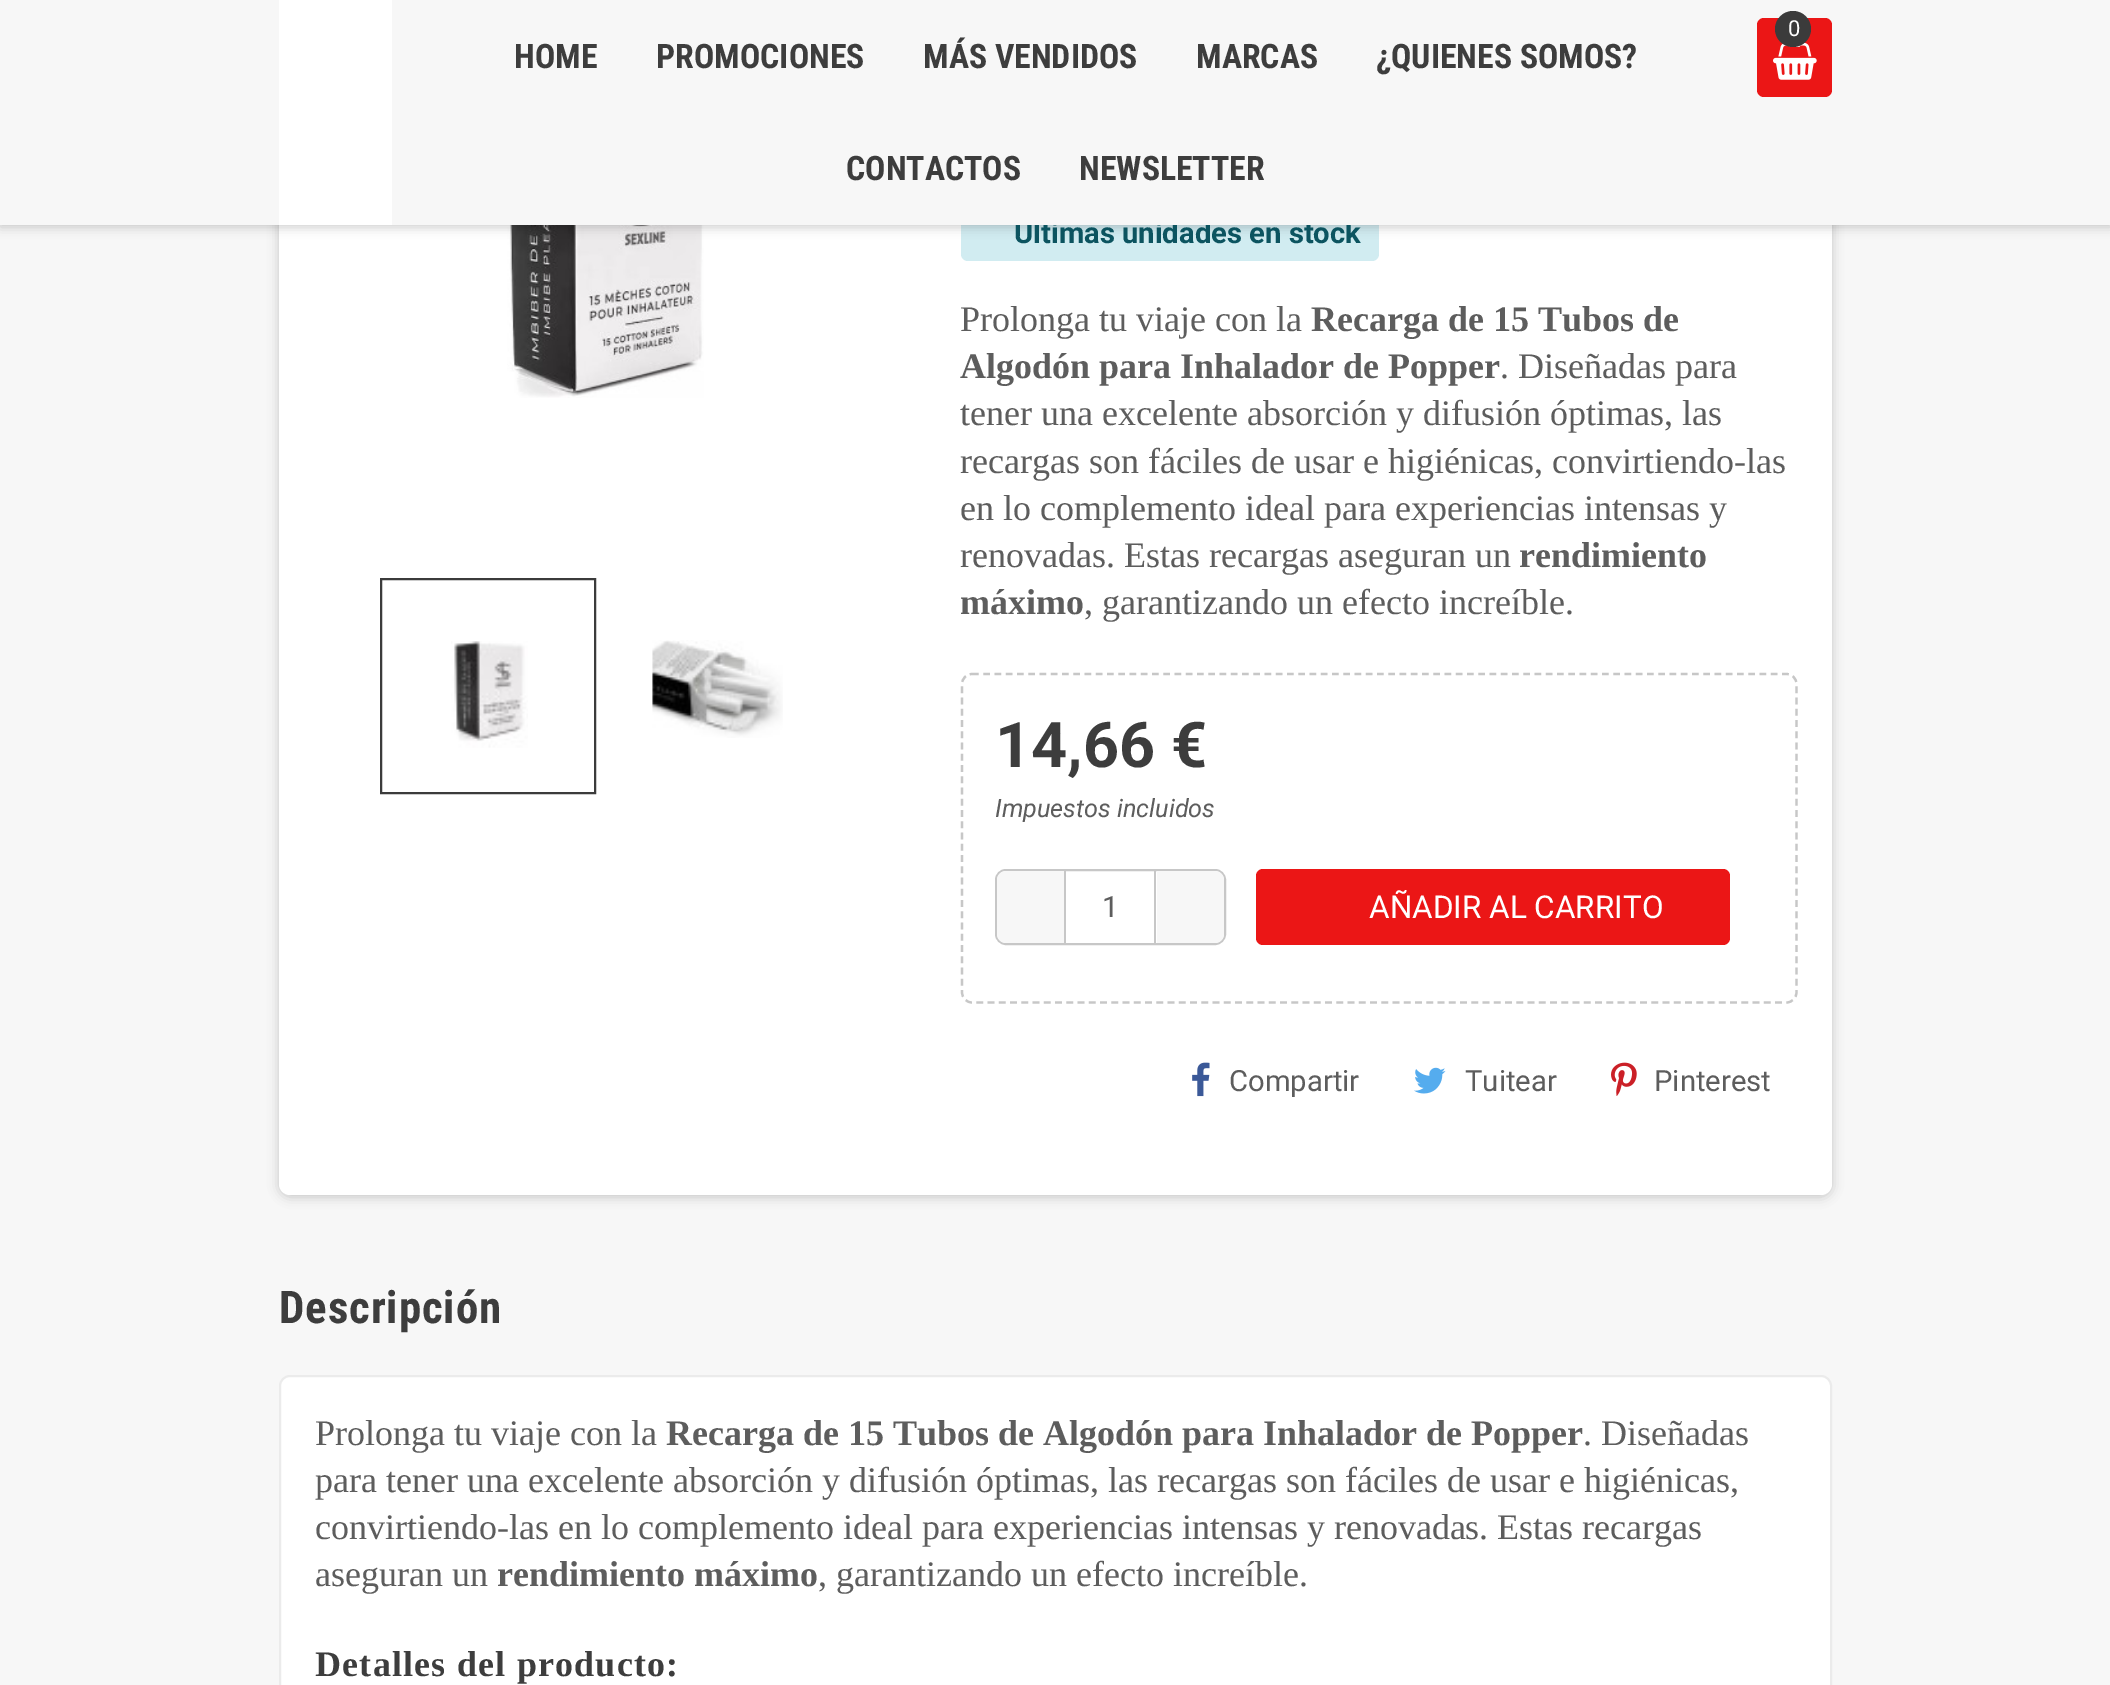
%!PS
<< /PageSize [2110 1685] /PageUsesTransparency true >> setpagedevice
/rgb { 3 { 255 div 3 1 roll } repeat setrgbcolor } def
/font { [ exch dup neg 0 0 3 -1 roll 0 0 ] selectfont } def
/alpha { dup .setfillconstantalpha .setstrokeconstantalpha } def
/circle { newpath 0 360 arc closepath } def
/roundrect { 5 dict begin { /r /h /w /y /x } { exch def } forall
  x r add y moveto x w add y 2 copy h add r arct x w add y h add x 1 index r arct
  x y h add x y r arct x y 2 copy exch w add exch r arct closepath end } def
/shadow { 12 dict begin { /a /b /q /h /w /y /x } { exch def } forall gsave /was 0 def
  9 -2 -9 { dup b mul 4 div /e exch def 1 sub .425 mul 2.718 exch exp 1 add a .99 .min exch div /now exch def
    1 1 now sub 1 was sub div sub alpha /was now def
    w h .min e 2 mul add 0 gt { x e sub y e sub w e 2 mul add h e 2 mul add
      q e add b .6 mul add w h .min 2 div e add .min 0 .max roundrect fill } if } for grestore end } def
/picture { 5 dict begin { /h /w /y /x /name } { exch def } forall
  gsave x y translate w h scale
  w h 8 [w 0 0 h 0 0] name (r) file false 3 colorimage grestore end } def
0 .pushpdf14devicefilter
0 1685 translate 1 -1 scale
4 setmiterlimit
247 247 247 rgb
0 0 2110 1685 rectfill
0 0 0 rgb
279 -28 1553 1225 11 5.5 0.2 shadow
255 255 255 rgb
279 -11 1553 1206 11 roundrect fill
(img/2.rgb) 507 225 197 173 picture
209 236 241 rgb
961 207 418 54 7 roundrect fill
0 0 0 rgb
0 2 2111 225 0 5.5 0.2 shadow
59 59 59 rgb
2 setlinewidth
381 579 214 214 rectstroke
(img/3.rgb) 451 641 77 107 picture
(img/4.rgb) 652 640 131 98 picture
199 199 199 rgb
2.2 setlinewidth
[6.75 4.5] 0 setdash
972 674 moveto 1786.5 674 lineto 1792 674 1796.5 678.5 1796.5 684 curveto 1796.5 992 lineto 1796.5 998 1792 1002.5 1786.5 1002.5 curveto 972 1002.5 lineto 966.5 1002.5 962 998 962 992 curveto 962 684 lineto 962 678.5 966.5 674 972 674 curveto closepath stroke
2 setlinewidth
[] 0 setdash
996 870 229 74 10 roundrect stroke
247 247 247 rgb
1006 871 moveto 1064 871 lineto 1064 943 lineto 1006 943 lineto 1001 943 997 939 997 934 curveto 997 880 lineto 997 875 1001 871 1006 871 curveto closepath fill
199 199 199 rgb
1154 871 2 72 rectfill
1064 871 2 72 rectfill
247 247 247 rgb
1157 871 moveto 1215 871 lineto 1220 871 1224 875 1224 880 curveto 1224 934 lineto 1224 939 1220 943 1215 943 curveto 1157 943 lineto closepath fill
235 22 22 rgb
1256 869 474 76 7 roundrect fill
(img/5.rgb) 1192 1062 18 35 picture
(img/6.rgb) 1414 1067 32 27 picture
(img/7.rgb) 1611 1062 26 34 picture
255 255 255 rgb
280 1376 1551 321 10 roundrect gsave fill grestore
235 235 235 rgb
stroke
/Roboto-Bold 29.25 font
12 84 96 rgb
1014 243 moveto (Últimas unidades en stock) show
247 247 247 rgb
0 0 2110 225 rectfill
255 255 255 rgb
279 0 113 225 rectfill
/RobotoCondensed-Bold 33.75 font
61 61 61 rgb
[
  [(NEWSLETTER) 1079 180]
  [(CONTACTOS) 846 180]
  [(¿QUIENES SOMOS?) 1376 68]
  [(MARCAS) 1196 68]
  [(MÁS VENDIDOS) 923 68]
  [(PROMOCIONES) 656 68]
  [(HOME) 514 68]
] { aload pop moveto show } forall
235 22 22 rgb
1757 18 75 79 7 roundrect fill
(img/1.rgb) 1773 42 44 38 picture
59 59 59 rgb
1793 29 18 circle fill
/Roboto-Regular 22 font
255 255 255 rgb
1788 36 moveto (0) show
/LiberationSerif-Regular 36 font
93 93 93 rgb
960 331 moveto (Prolonga tu viaje con la) show
/LiberationSerif-Bold 36 font
1311 331 moveto (Recarga de 15 Tubos de) show
960 378 moveto (Algodón para Inhalador de Popper) show
/LiberationSerif-Regular 36 font
[
  [(. Diseñadas para) 1500 378]
  [(tener una excelente absorción y difusión óptimas, las) 960 425]
  [(recargas son fáciles de usar e higiénicas, convirtiendo-las) 960 473]
  [(en lo complemento ideal para experiencias intensas y) 960 520]
  [(renovadas. Estas recargas aseguran un) 960 567]
] { aload pop moveto show } forall
/LiberationSerif-Bold 36 font
1519 567 moveto (rendimiento) show
960 614 moveto (máximo) show
/LiberationSerif-Regular 36 font
1084 614 moveto (, garantizando un efecto increíble.) show
/Roboto-Bold 63 font
61 61 61 rgb
995 767 moveto (14,66 €) show
/Roboto-Italic 25.25 font
93 93 93 rgb
995 817 moveto (Impuestos incluidos) show
/Roboto-Regular 29.25 font
1102 917 moveto (1) show
/Roboto-Regular 31.5 font
255 255 255 rgb
1369 918 moveto (AÑADIR AL CARRITO) show
/Roboto-Regular 29.25 font
93 93 93 rgb
[
  [(Compartir) 1229 1091]
  [(Tuitear) 1465 1091]
  [(Pinterest) 1654 1091]
] { aload pop moveto show } forall
/RobotoCondensed-Bold 45 font
61 61 61 rgb
279 1323 moveto 0.9 0 (Descripción) ashow
/LiberationSerif-Regular 36 font
93 93 93 rgb
315 1445 moveto (Prolonga tu viaje con la) show
/LiberationSerif-Bold 36 font
666 1445 moveto (Recarga de 15 Tubos de Algodón para Inhalador de Popper) show
/LiberationSerif-Regular 36 font
[
  [(. Diseñadas) 1583 1445]
  [(para tener una excelente absorción y difusión óptimas, las recargas son fáciles de usar e higiénicas,) 315 1492]
  [(convirtiendo-las en lo complemento ideal para experiencias intensas y renovadas. Estas recargas) 315 1539]
  [(aseguran un) 315 1586]
] { aload pop moveto show } forall
/LiberationSerif-Bold 36 font
497 1586 moveto (rendimiento máximo) show
/LiberationSerif-Regular 36 font
818 1586 moveto (, garantizando un efecto increíble.) show
/LiberationSerif-Bold 36 font
61 61 61 rgb
315 1676 moveto 1.2 0 (Detalles del producto:) ashow
.poppdf14devicefilter showpage
